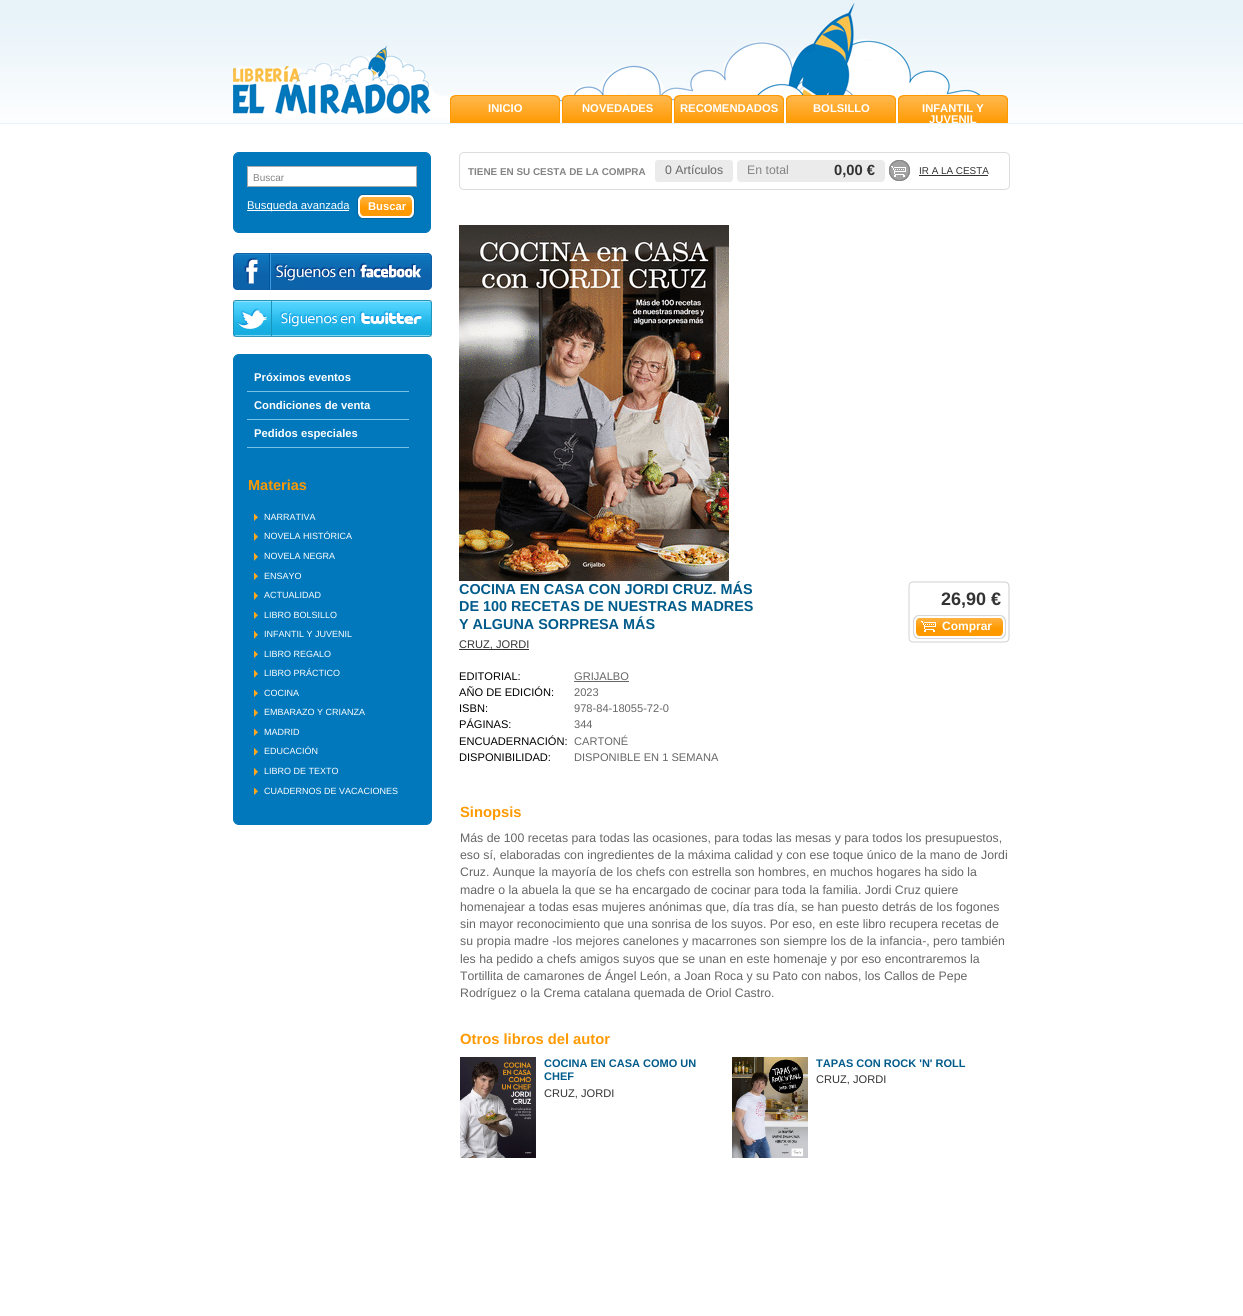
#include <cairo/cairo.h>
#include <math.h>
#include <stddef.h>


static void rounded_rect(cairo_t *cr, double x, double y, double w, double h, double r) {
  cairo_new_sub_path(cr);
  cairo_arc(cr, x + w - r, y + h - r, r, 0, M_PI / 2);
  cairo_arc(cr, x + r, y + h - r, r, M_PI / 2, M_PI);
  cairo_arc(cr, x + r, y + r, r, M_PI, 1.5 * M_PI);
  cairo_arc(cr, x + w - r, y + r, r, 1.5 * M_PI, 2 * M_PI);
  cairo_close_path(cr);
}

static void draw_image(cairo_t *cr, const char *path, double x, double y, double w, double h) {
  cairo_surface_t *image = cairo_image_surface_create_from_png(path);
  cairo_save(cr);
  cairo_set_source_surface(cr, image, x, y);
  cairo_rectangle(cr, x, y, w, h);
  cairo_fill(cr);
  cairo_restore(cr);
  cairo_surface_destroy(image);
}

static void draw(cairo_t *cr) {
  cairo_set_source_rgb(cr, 1, 1, 1);
  cairo_paint(cr);
  draw_image(cr, "images/1.png", 0, 0, 1243, 124);
  draw_image(cr, "images/2.png", 233, 3, 756, 115);
  draw_image(cr, "images/3.png", 233, 45, 198, 69);
  draw_image(cr, "images/4.png", 450, 95, 110, 28);
  draw_image(cr, "images/5.png", 562, 95, 110, 28);
  draw_image(cr, "images/6.png", 674, 95, 110, 28);
  draw_image(cr, "images/7.png", 786, 95, 110, 28);
  draw_image(cr, "images/8.png", 898, 95, 110, 28);
  cairo_set_source_rgb(cr, 1 / 255.0, 120 / 255.0, 188 / 255.0);
  rounded_rect(cr, 233.5, 152.5, 197, 80, 5.5);
  cairo_fill_preserve(cr);
  cairo_set_line_width(cr, 1);
  cairo_stroke(cr);
  cairo_set_source_rgb(cr, 1, 1, 1);
  cairo_rectangle(cr, 247.5, 166.5, 169, 20);
  cairo_fill_preserve(cr);
  cairo_set_source_rgb(cr, 170 / 255.0, 170 / 255.0, 170 / 255.0);
  cairo_stroke(cr);
  draw_image(cr, "images/9.png", 357, 194, 58, 25);
  cairo_set_source_rgb(cr, 1, 1, 1);
  cairo_rectangle(cr, 247, 210, 102, 1);
  cairo_fill(cr);
  draw_image(cr, "images/10.png", 233, 253, 199, 37);
  draw_image(cr, "images/11.png", 233, 300, 199, 37);
  cairo_set_source_rgb(cr, 1 / 255.0, 120 / 255.0, 188 / 255.0);
  rounded_rect(cr, 233.5, 354.5, 198, 470, 5.5);
  cairo_fill_preserve(cr);
  cairo_stroke(cr);
  cairo_set_source_rgb(cr, 123 / 255.0, 194 / 255.0, 232 / 255.0);
  cairo_rectangle(cr, 247, 391, 162, 1);
  cairo_fill(cr);
  cairo_rectangle(cr, 247, 419, 162, 1);
  cairo_fill(cr);
  cairo_rectangle(cr, 247, 447, 162, 1);
  cairo_fill(cr);
  draw_image(cr, "images/12.png", 254, 513, 4, 8);
  draw_image(cr, "images/13.png", 254, 533, 4, 8);
  draw_image(cr, "images/13.png", 254, 553, 4, 8);
  draw_image(cr, "images/12.png", 254, 572, 4, 8);
  draw_image(cr, "images/13.png", 254, 592, 4, 8);
  draw_image(cr, "images/12.png", 254, 611, 4, 8);
  draw_image(cr, "images/13.png", 254, 631, 4, 8);
  draw_image(cr, "images/12.png", 254, 650, 4, 8);
  draw_image(cr, "images/13.png", 254, 670, 4, 8);
  draw_image(cr, "images/12.png", 254, 689, 4, 8);
  draw_image(cr, "images/13.png", 254, 709, 4, 8);
  draw_image(cr, "images/12.png", 254, 728, 4, 8);
  draw_image(cr, "images/13.png", 254, 748, 4, 8);
  draw_image(cr, "images/13.png", 254, 768, 4, 8);
  draw_image(cr, "images/12.png", 254, 787, 4, 8);
  rounded_rect(cr, 459.5, 152.5, 550, 37, 4.5);
  cairo_set_source_rgb(cr, 221 / 255.0, 221 / 255.0, 221 / 255.0);
  cairo_stroke(cr);
  cairo_set_source_rgb(cr, 235 / 255.0, 235 / 255.0, 235 / 255.0);
  rounded_rect(cr, 655, 160, 78, 22, 3);
  cairo_fill(cr);
  rounded_rect(cr, 737, 160, 148, 22, 4);
  cairo_fill(cr);
  draw_image(cr, "images/14.png", 889, 160, 21, 21);
  cairo_set_source_rgb(cr, 51 / 255.0, 51 / 255.0, 51 / 255.0);
  cairo_rectangle(cr, 919, 175, 69, 1);
  cairo_fill(cr);
  draw_image(cr, "images/15.png", 459, 225, 270, 356);
  cairo_rectangle(cr, 459, 649, 70, 1);
  cairo_fill(cr);
  cairo_set_source_rgb(cr, 102 / 255.0, 102 / 255.0, 102 / 255.0);
  cairo_rectangle(cr, 574, 681, 55, 1);
  cairo_fill(cr);
  draw_image(cr, "images/16.png", 908, 581, 102, 62);
  draw_image(cr, "images/17.png", 460, 1057, 76, 101);
  draw_image(cr, "images/18.png", 732, 1057, 76, 101);
  cairo_select_font_face(cr, "Liberation Sans", CAIRO_FONT_SLANT_NORMAL, CAIRO_FONT_WEIGHT_BOLD);
  cairo_set_font_size(cr, 11.25);
  cairo_set_source_rgb(cr, 1, 1, 1);
  cairo_move_to(cr, 488, 112);
  cairo_show_text(cr, "INICIO");
  cairo_move_to(cr, 582, 112);
  cairo_show_text(cr, "NOVEDADES");
  cairo_move_to(cr, 680, 112);
  cairo_show_text(cr, "RECOMENDADOS");
  cairo_move_to(cr, 813, 112);
  cairo_show_text(cr, "BOLSILLO");
  cairo_move_to(cr, 922, 112);
  cairo_show_text(cr, "INFANTIL Y");
  cairo_move_to(cr, 929, 123);
  cairo_show_text(cr, "JUVENIL");
  cairo_select_font_face(cr, "Liberation Sans", CAIRO_FONT_SLANT_NORMAL, CAIRO_FONT_WEIGHT_NORMAL);
  cairo_set_font_size(cr, 10);
  cairo_set_source_rgb(cr, 132 / 255.0, 132 / 255.0, 132 / 255.0);
  cairo_move_to(cr, 253, 181);
  cairo_show_text(cr, "Buscar");
  cairo_select_font_face(cr, "Liberation Sans", CAIRO_FONT_SLANT_NORMAL, CAIRO_FONT_WEIGHT_BOLD);
  cairo_set_font_size(cr, 11.25);
  cairo_set_source_rgb(cr, 1, 1, 1);
  cairo_move_to(cr, 368, 210);
  cairo_show_text(cr, "Buscar");
  cairo_select_font_face(cr, "Liberation Sans", CAIRO_FONT_SLANT_NORMAL, CAIRO_FONT_WEIGHT_NORMAL);
  cairo_move_to(cr, 247, 209);
  cairo_show_text(cr, "Busqueda avanzada");
  cairo_select_font_face(cr, "Liberation Sans", CAIRO_FONT_SLANT_NORMAL, CAIRO_FONT_WEIGHT_BOLD);
  cairo_move_to(cr, 254, 381);
  cairo_show_text(cr, "Próximos eventos");
  cairo_move_to(cr, 254, 409);
  cairo_show_text(cr, "Condiciones de venta");
  cairo_move_to(cr, 254, 437);
  cairo_show_text(cr, "Pedidos especiales");
  cairo_set_font_size(cr, 14.5);
  cairo_set_source_rgb(cr, 1, 153 / 255.0, 0);
  cairo_move_to(cr, 248, 490);
  cairo_show_text(cr, "Materias");
  cairo_select_font_face(cr, "Liberation Sans", CAIRO_FONT_SLANT_NORMAL, CAIRO_FONT_WEIGHT_NORMAL);
  cairo_set_font_size(cr, 9);
  cairo_set_source_rgb(cr, 1, 1, 1);
  cairo_move_to(cr, 264, 520);
  cairo_show_text(cr, "NARRATIVA");
  cairo_move_to(cr, 264, 539);
  cairo_show_text(cr, "NOVELA HISTÓRICA");
  cairo_move_to(cr, 264, 559);
  cairo_show_text(cr, "NOVELA NEGRA");
  cairo_move_to(cr, 264, 579);
  cairo_show_text(cr, "ENSAYO");
  cairo_move_to(cr, 264, 598);
  cairo_show_text(cr, "ACTUALIDAD");
  cairo_move_to(cr, 264, 618);
  cairo_show_text(cr, "LIBRO BOLSILLO");
  cairo_move_to(cr, 264, 637);
  cairo_show_text(cr, "INFANTIL Y JUVENIL");
  cairo_move_to(cr, 264, 657);
  cairo_show_text(cr, "LIBRO REGALO");
  cairo_move_to(cr, 264, 676);
  cairo_show_text(cr, "LIBRO PRÁCTICO");
  cairo_move_to(cr, 264, 696);
  cairo_show_text(cr, "COCINA");
  cairo_move_to(cr, 264, 715);
  cairo_show_text(cr, "EMBARAZO Y CRIANZA");
  cairo_move_to(cr, 264, 735);
  cairo_show_text(cr, "MADRID");
  cairo_move_to(cr, 264, 754);
  cairo_show_text(cr, "EDUCACIÓN");
  cairo_move_to(cr, 264, 774);
  cairo_show_text(cr, "LIBRO DE TEXTO");
  cairo_move_to(cr, 264, 794);
  cairo_show_text(cr, "CUADERNOS DE VACACIONES");
  cairo_select_font_face(cr, "Liberation Sans", CAIRO_FONT_SLANT_NORMAL, CAIRO_FONT_WEIGHT_BOLD);
  cairo_set_font_size(cr, 9.9);
  cairo_set_source_rgb(cr, 132 / 255.0, 132 / 255.0, 132 / 255.0);
  cairo_move_to(cr, 468, 175);
  cairo_show_text(cr, "TIENE EN SU CESTA DE LA COMPRA");
  cairo_select_font_face(cr, "Liberation Sans", CAIRO_FONT_SLANT_NORMAL, CAIRO_FONT_WEIGHT_NORMAL);
  cairo_set_font_size(cr, 12.3);
  cairo_set_source_rgb(cr, 102 / 255.0, 102 / 255.0, 102 / 255.0);
  cairo_move_to(cr, 665, 174);
  cairo_show_text(cr, "0 Artículos");
  cairo_set_source_rgb(cr, 132 / 255.0, 132 / 255.0, 132 / 255.0);
  cairo_move_to(cr, 747, 174);
  cairo_show_text(cr, "En total");
  cairo_select_font_face(cr, "Liberation Sans", CAIRO_FONT_SLANT_NORMAL, CAIRO_FONT_WEIGHT_BOLD);
  cairo_set_font_size(cr, 14.75);
  cairo_set_source_rgb(cr, 51 / 255.0, 51 / 255.0, 51 / 255.0);
  cairo_move_to(cr, 834, 175);
  cairo_show_text(cr, "0,00 €");
  cairo_select_font_face(cr, "Liberation Sans", CAIRO_FONT_SLANT_NORMAL, CAIRO_FONT_WEIGHT_NORMAL);
  cairo_set_font_size(cr, 9.9);
  cairo_move_to(cr, 919, 174);
  cairo_show_text(cr, "IR A LA CESTA");
  cairo_select_font_face(cr, "Liberation Sans", CAIRO_FONT_SLANT_NORMAL, CAIRO_FONT_WEIGHT_BOLD);
  cairo_set_font_size(cr, 14.4);
  cairo_set_source_rgb(cr, 0, 91 / 255.0, 139 / 255.0);
  cairo_move_to(cr, 459, 594);
  cairo_show_text(cr, "COCINA EN CASA CON JORDI CRUZ. MÁS");
  cairo_move_to(cr, 459, 611);
  cairo_show_text(cr, "DE 100 RECETAS DE NUESTRAS MADRES");
  cairo_move_to(cr, 459, 629);
  cairo_show_text(cr, "Y ALGUNA SORPRESA MÁS");
  cairo_select_font_face(cr, "Liberation Sans", CAIRO_FONT_SLANT_NORMAL, CAIRO_FONT_WEIGHT_NORMAL);
  cairo_set_font_size(cr, 11.1);
  cairo_set_source_rgb(cr, 51 / 255.0, 51 / 255.0, 51 / 255.0);
  cairo_move_to(cr, 459, 648);
  cairo_show_text(cr, "CRUZ, JORDI");
  cairo_set_source_rgb(cr, 0, 0, 0);
  cairo_move_to(cr, 459, 680);
  cairo_show_text(cr, "EDITORIAL:");
  cairo_set_source_rgb(cr, 102 / 255.0, 102 / 255.0, 102 / 255.0);
  cairo_move_to(cr, 574, 680);
  cairo_show_text(cr, "GRIJALBO");
  cairo_set_source_rgb(cr, 0, 0, 0);
  cairo_move_to(cr, 459, 696);
  cairo_show_text(cr, "AÑO DE EDICIÓN:");
  cairo_set_source_rgb(cr, 102 / 255.0, 102 / 255.0, 102 / 255.0);
  cairo_move_to(cr, 574, 696);
  cairo_show_text(cr, "2023");
  cairo_set_source_rgb(cr, 0, 0, 0);
  cairo_move_to(cr, 459, 712);
  cairo_show_text(cr, "ISBN:");
  cairo_set_source_rgb(cr, 102 / 255.0, 102 / 255.0, 102 / 255.0);
  cairo_move_to(cr, 574, 712);
  cairo_show_text(cr, "978-84-18055-72-0");
  cairo_set_source_rgb(cr, 0, 0, 0);
  cairo_move_to(cr, 459, 728);
  cairo_show_text(cr, "PÁGINAS:");
  cairo_set_source_rgb(cr, 102 / 255.0, 102 / 255.0, 102 / 255.0);
  cairo_move_to(cr, 574, 728);
  cairo_show_text(cr, "344");
  cairo_set_source_rgb(cr, 0, 0, 0);
  cairo_move_to(cr, 459, 745);
  cairo_show_text(cr, "ENCUADERNACIÓN:");
  cairo_set_source_rgb(cr, 102 / 255.0, 102 / 255.0, 102 / 255.0);
  cairo_move_to(cr, 574, 745);
  cairo_show_text(cr, "CARTONÉ");
  cairo_set_source_rgb(cr, 0, 0, 0);
  cairo_move_to(cr, 459, 761);
  cairo_show_text(cr, "DISPONIBILIDAD:");
  cairo_set_source_rgb(cr, 102 / 255.0, 102 / 255.0, 102 / 255.0);
  cairo_move_to(cr, 574, 761);
  cairo_show_text(cr, "DISPONIBLE EN 1 SEMANA");
  cairo_select_font_face(cr, "Liberation Sans", CAIRO_FONT_SLANT_NORMAL, CAIRO_FONT_WEIGHT_BOLD);
  cairo_set_font_size(cr, 18);
  cairo_set_source_rgb(cr, 51 / 255.0, 51 / 255.0, 51 / 255.0);
  cairo_move_to(cr, 941, 605);
  cairo_show_text(cr, "26,90 €");
  cairo_set_font_size(cr, 12);
  cairo_set_source_rgb(cr, 1, 1, 1);
  cairo_move_to(cr, 942, 630);
  cairo_show_text(cr, "Comprar");
  cairo_set_font_size(cr, 14.75);
  cairo_set_source_rgb(cr, 1, 153 / 255.0, 0);
  cairo_move_to(cr, 460, 817);
  cairo_show_text(cr, "Sinopsis");
  cairo_select_font_face(cr, "Liberation Sans", CAIRO_FONT_SLANT_NORMAL, CAIRO_FONT_WEIGHT_NORMAL);
  cairo_set_font_size(cr, 12.3);
  cairo_set_source_rgb(cr, 102 / 255.0, 102 / 255.0, 102 / 255.0);
  cairo_move_to(cr, 460, 842);
  cairo_show_text(cr, "Más de 100 recetas para todas las ocasiones, para todas las mesas y para todos los presupuestos,");
  cairo_move_to(cr, 460, 859);
  cairo_show_text(cr, "eso sí, elaboradas con ingredientes de la máxima calidad y con ese toque único de la mano de Jordi");
  cairo_move_to(cr, 460, 876);
  cairo_show_text(cr, "Cruz. Aunque la mayoría de los chefs con estrella son hombres, en muchos hogares ha sido la");
  cairo_move_to(cr, 460, 894);
  cairo_show_text(cr, "madre o la abuela la que se ha encargado de cocinar para toda la familia. Jordi Cruz quiere");
  cairo_move_to(cr, 460, 911);
  cairo_show_text(cr, "homenajear a todas esas mujeres anónimas que, día tras día, se han puesto detrás de los fogones");
  cairo_move_to(cr, 460, 928);
  cairo_show_text(cr, "sin mayor reconocimiento que una sonrisa de los suyos. Por eso, en este libro recupera recetas de");
  cairo_move_to(cr, 460, 945);
  cairo_show_text(cr, "su propia madre -los mejores canelones y macarrones son siempre los de la infancia-, pero también");
  cairo_move_to(cr, 460, 963);
  cairo_show_text(cr, "les ha pedido a chefs amigos suyos que se unan en este homenaje y por eso encontraremos la");
  cairo_move_to(cr, 460, 980);
  cairo_show_text(cr, "Tortillita de camarones de Ángel León, a Joan Roca y su Pato con nabos, los Callos de Pepe");
  cairo_move_to(cr, 460, 997);
  cairo_show_text(cr, "Rodríguez o la Crema catalana quemada de Oriol Castro.");
  cairo_select_font_face(cr, "Liberation Sans", CAIRO_FONT_SLANT_NORMAL, CAIRO_FONT_WEIGHT_BOLD);
  cairo_set_font_size(cr, 14.75);
  cairo_set_source_rgb(cr, 1, 153 / 255.0, 0);
  cairo_move_to(cr, 460, 1044);
  cairo_show_text(cr, "Otros libros del autor");
  cairo_set_font_size(cr, 11);
  cairo_set_source_rgb(cr, 0, 91 / 255.0, 139 / 255.0);
  cairo_move_to(cr, 544, 1067);
  cairo_show_text(cr, "COCINA EN CASA COMO UN");
  cairo_move_to(cr, 544, 1080);
  cairo_show_text(cr, "CHEF");
  cairo_select_font_face(cr, "Liberation Sans", CAIRO_FONT_SLANT_NORMAL, CAIRO_FONT_WEIGHT_NORMAL);
  cairo_set_font_size(cr, 11.1);
  cairo_set_source_rgb(cr, 51 / 255.0, 51 / 255.0, 51 / 255.0);
  cairo_move_to(cr, 544, 1097);
  cairo_show_text(cr, "CRUZ, JORDI");
  cairo_select_font_face(cr, "Liberation Sans", CAIRO_FONT_SLANT_NORMAL, CAIRO_FONT_WEIGHT_BOLD);
  cairo_set_font_size(cr, 11);
  cairo_set_source_rgb(cr, 0, 91 / 255.0, 139 / 255.0);
  cairo_move_to(cr, 816, 1067);
  cairo_show_text(cr, "TAPAS CON ROCK 'N' ROLL");
  cairo_select_font_face(cr, "Liberation Sans", CAIRO_FONT_SLANT_NORMAL, CAIRO_FONT_WEIGHT_NORMAL);
  cairo_set_font_size(cr, 11.1);
  cairo_set_source_rgb(cr, 51 / 255.0, 51 / 255.0, 51 / 255.0);
  cairo_move_to(cr, 816, 1083);
  cairo_show_text(cr, "CRUZ, JORDI");
}

int main(void) {
  cairo_surface_t *surface = cairo_image_surface_create(CAIRO_FORMAT_RGB24, 1243, 1316);
  cairo_t *cr = cairo_create(surface);
  cairo_font_options_t *options = cairo_font_options_create();
  cairo_font_options_set_hint_metrics(options, CAIRO_HINT_METRICS_OFF);
  cairo_font_options_set_hint_style(options, CAIRO_HINT_STYLE_NONE);
  cairo_set_font_options(cr, options);
  cairo_set_miter_limit(cr, 4);
  draw(cr);
  cairo_surface_write_to_png(surface, "out.png");
  cairo_font_options_destroy(options);
  cairo_destroy(cr);
  cairo_surface_destroy(surface);
  return 0;
}
